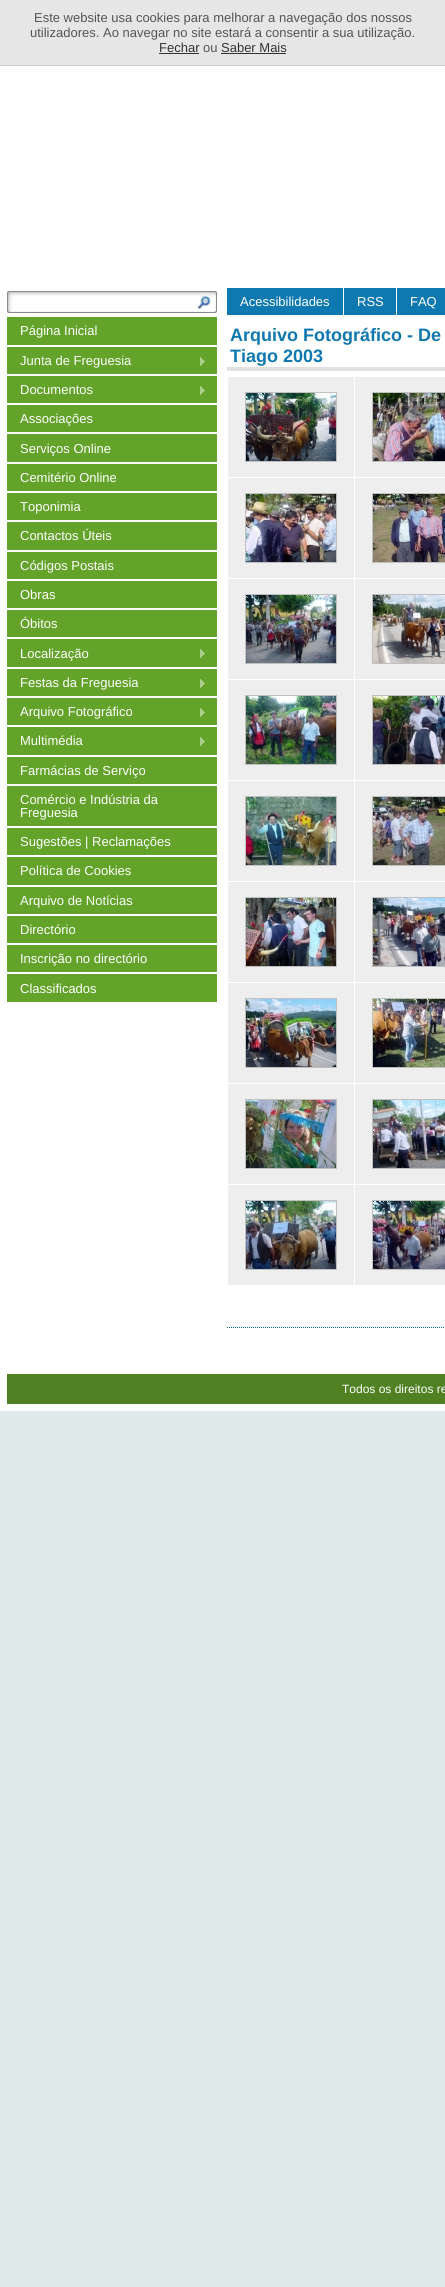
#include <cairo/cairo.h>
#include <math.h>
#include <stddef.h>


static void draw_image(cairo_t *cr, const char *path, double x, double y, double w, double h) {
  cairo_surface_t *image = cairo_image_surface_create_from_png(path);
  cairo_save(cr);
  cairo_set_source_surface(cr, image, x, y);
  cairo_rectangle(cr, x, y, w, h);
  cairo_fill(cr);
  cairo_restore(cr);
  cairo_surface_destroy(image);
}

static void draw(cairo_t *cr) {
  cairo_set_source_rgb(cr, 224 / 255.0, 233 / 255.0, 233 / 255.0);
  cairo_paint(cr);
  cairo_set_source_rgb(cr, 230 / 255.0, 230 / 255.0, 230 / 255.0);
  cairo_rectangle(cr, 0, 0, 445, 65);
  cairo_fill(cr);
  cairo_set_source_rgb(cr, 204 / 255.0, 204 / 255.0, 204 / 255.0);
  cairo_rectangle(cr, 0, 65, 445, 1);
  cairo_fill(cr);
  cairo_set_source_rgb(cr, 51 / 255.0, 51 / 255.0, 51 / 255.0);
  cairo_rectangle(cr, 159, 53, 40, 1);
  cairo_fill(cr);
  cairo_rectangle(cr, 221, 53, 65, 1);
  cairo_fill(cr);
  cairo_set_source_rgb(cr, 1, 1, 1);
  cairo_rectangle(cr, 0, 66, 445, 1345);
  cairo_fill(cr);
  draw_image(cr, "images/1.png", 7, 291, 210, 22);
  cairo_set_source_rgb(cr, 14 / 255.0, 120 / 255.0, 176 / 255.0);
  cairo_rectangle(cr, 227, 288, 218, 27);
  cairo_fill(cr);
  cairo_set_source_rgb(cr, 1, 1, 1);
  cairo_rectangle(cr, 343, 288, 1, 27);
  cairo_fill(cr);
  cairo_rectangle(cr, 396, 288, 1, 27);
  cairo_fill(cr);
  cairo_set_source_rgb(cr, 99 / 255.0, 163 / 255.0, 42 / 255.0);
  cairo_rectangle(cr, 7, 317, 210, 28);
  cairo_fill(cr);
  cairo_rectangle(cr, 7, 347, 210, 27);
  cairo_fill(cr);
  draw_image(cr, "images/2.png", 200, 357, 5, 9);
  cairo_rectangle(cr, 7, 376, 210, 27);
  cairo_fill(cr);
  draw_image(cr, "images/2.png", 200, 386, 5, 9);
  cairo_rectangle(cr, 7, 405, 210, 27);
  cairo_fill(cr);
  cairo_rectangle(cr, 7, 434, 210, 28);
  cairo_fill(cr);
  cairo_rectangle(cr, 7, 464, 210, 27);
  cairo_fill(cr);
  cairo_rectangle(cr, 7, 493, 210, 27);
  cairo_fill(cr);
  cairo_rectangle(cr, 7, 522, 210, 28);
  cairo_fill(cr);
  cairo_rectangle(cr, 7, 552, 210, 27);
  cairo_fill(cr);
  cairo_rectangle(cr, 7, 581, 210, 27);
  cairo_fill(cr);
  cairo_rectangle(cr, 7, 610, 210, 27);
  cairo_fill(cr);
  cairo_rectangle(cr, 7, 639, 210, 28);
  cairo_fill(cr);
  draw_image(cr, "images/2.png", 200, 649, 5, 9);
  cairo_rectangle(cr, 7, 669, 210, 27);
  cairo_fill(cr);
  draw_image(cr, "images/2.png", 200, 679, 5, 9);
  cairo_rectangle(cr, 7, 698, 210, 27);
  cairo_fill(cr);
  draw_image(cr, "images/2.png", 200, 708, 5, 9);
  cairo_rectangle(cr, 7, 727, 210, 28);
  cairo_fill(cr);
  draw_image(cr, "images/2.png", 200, 737, 5, 9);
  cairo_rectangle(cr, 7, 757, 210, 27);
  cairo_fill(cr);
  cairo_rectangle(cr, 7, 786, 210, 40);
  cairo_fill(cr);
  cairo_rectangle(cr, 7, 828, 210, 27);
  cairo_fill(cr);
  cairo_rectangle(cr, 7, 857, 210, 28);
  cairo_fill(cr);
  cairo_rectangle(cr, 7, 887, 210, 27);
  cairo_fill(cr);
  cairo_rectangle(cr, 7, 916, 210, 27);
  cairo_fill(cr);
  cairo_rectangle(cr, 7, 945, 210, 27);
  cairo_fill(cr);
  cairo_rectangle(cr, 7, 974, 210, 28);
  cairo_fill(cr);
  cairo_set_source_rgb(cr, 224 / 255.0, 224 / 255.0, 224 / 255.0);
  cairo_rectangle(cr, 227, 367, 218, 4);
  cairo_fill(cr);
  cairo_set_source_rgb(cr, 238 / 255.0, 238 / 255.0, 238 / 255.0);
  cairo_rectangle(cr, 228, 377, 126, 100);
  cairo_fill(cr);
  cairo_rectangle(cr, 245.5, 392.5, 91, 69);
  cairo_set_source_rgb(cr, 192 / 255.0, 192 / 255.0, 192 / 255.0);
  cairo_set_line_width(cr, 1);
  cairo_stroke(cr);
  draw_image(cr, "images/3.png", 246, 393, 90, 68);
  cairo_set_source_rgb(cr, 238 / 255.0, 238 / 255.0, 238 / 255.0);
  cairo_rectangle(cr, 355, 377, 90, 100);
  cairo_fill(cr);
  cairo_rectangle(cr, 372.5, 392.5, 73, 69);
  cairo_set_source_rgb(cr, 192 / 255.0, 192 / 255.0, 192 / 255.0);
  cairo_stroke(cr);
  draw_image(cr, "images/4.png", 373, 393, 72, 68);
  cairo_set_source_rgb(cr, 238 / 255.0, 238 / 255.0, 238 / 255.0);
  cairo_rectangle(cr, 228, 478, 126, 100);
  cairo_fill(cr);
  cairo_rectangle(cr, 245.5, 493.5, 91, 69);
  cairo_set_source_rgb(cr, 192 / 255.0, 192 / 255.0, 192 / 255.0);
  cairo_stroke(cr);
  draw_image(cr, "images/5.png", 246, 494, 90, 68);
  cairo_set_source_rgb(cr, 238 / 255.0, 238 / 255.0, 238 / 255.0);
  cairo_rectangle(cr, 355, 478, 90, 100);
  cairo_fill(cr);
  cairo_rectangle(cr, 372.5, 493.5, 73, 69);
  cairo_set_source_rgb(cr, 192 / 255.0, 192 / 255.0, 192 / 255.0);
  cairo_stroke(cr);
  draw_image(cr, "images/6.png", 373, 494, 72, 68);
  cairo_set_source_rgb(cr, 238 / 255.0, 238 / 255.0, 238 / 255.0);
  cairo_rectangle(cr, 228, 579, 126, 100);
  cairo_fill(cr);
  cairo_rectangle(cr, 245.5, 594.5, 91, 69);
  cairo_set_source_rgb(cr, 192 / 255.0, 192 / 255.0, 192 / 255.0);
  cairo_stroke(cr);
  draw_image(cr, "images/7.png", 246, 595, 90, 68);
  cairo_set_source_rgb(cr, 238 / 255.0, 238 / 255.0, 238 / 255.0);
  cairo_rectangle(cr, 355, 579, 90, 100);
  cairo_fill(cr);
  cairo_rectangle(cr, 372.5, 594.5, 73, 69);
  cairo_set_source_rgb(cr, 192 / 255.0, 192 / 255.0, 192 / 255.0);
  cairo_stroke(cr);
  draw_image(cr, "images/8.png", 373, 595, 72, 68);
  cairo_set_source_rgb(cr, 238 / 255.0, 238 / 255.0, 238 / 255.0);
  cairo_rectangle(cr, 228, 680, 126, 100);
  cairo_fill(cr);
  cairo_rectangle(cr, 245.5, 695.5, 91, 69);
  cairo_set_source_rgb(cr, 192 / 255.0, 192 / 255.0, 192 / 255.0);
  cairo_stroke(cr);
  draw_image(cr, "images/9.png", 246, 696, 90, 68);
  cairo_set_source_rgb(cr, 238 / 255.0, 238 / 255.0, 238 / 255.0);
  cairo_rectangle(cr, 355, 680, 90, 100);
  cairo_fill(cr);
  cairo_rectangle(cr, 372.5, 695.5, 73, 69);
  cairo_set_source_rgb(cr, 192 / 255.0, 192 / 255.0, 192 / 255.0);
  cairo_stroke(cr);
  draw_image(cr, "images/10.png", 373, 696, 72, 68);
  cairo_set_source_rgb(cr, 238 / 255.0, 238 / 255.0, 238 / 255.0);
  cairo_rectangle(cr, 228, 781, 126, 100);
  cairo_fill(cr);
  cairo_rectangle(cr, 245.5, 796.5, 91, 69);
  cairo_set_source_rgb(cr, 192 / 255.0, 192 / 255.0, 192 / 255.0);
  cairo_stroke(cr);
  draw_image(cr, "images/11.png", 246, 797, 90, 68);
  cairo_set_source_rgb(cr, 238 / 255.0, 238 / 255.0, 238 / 255.0);
  cairo_rectangle(cr, 355, 781, 90, 100);
  cairo_fill(cr);
  cairo_rectangle(cr, 372.5, 796.5, 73, 69);
  cairo_set_source_rgb(cr, 192 / 255.0, 192 / 255.0, 192 / 255.0);
  cairo_stroke(cr);
  draw_image(cr, "images/12.png", 373, 797, 72, 68);
  cairo_set_source_rgb(cr, 238 / 255.0, 238 / 255.0, 238 / 255.0);
  cairo_rectangle(cr, 228, 882, 126, 100);
  cairo_fill(cr);
  cairo_rectangle(cr, 245.5, 897.5, 91, 69);
  cairo_set_source_rgb(cr, 192 / 255.0, 192 / 255.0, 192 / 255.0);
  cairo_stroke(cr);
  draw_image(cr, "images/13.png", 246, 898, 90, 68);
  cairo_set_source_rgb(cr, 238 / 255.0, 238 / 255.0, 238 / 255.0);
  cairo_rectangle(cr, 355, 882, 90, 100);
  cairo_fill(cr);
  cairo_rectangle(cr, 372.5, 897.5, 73, 69);
  cairo_set_source_rgb(cr, 192 / 255.0, 192 / 255.0, 192 / 255.0);
  cairo_stroke(cr);
  draw_image(cr, "images/14.png", 373, 898, 72, 68);
  cairo_set_source_rgb(cr, 238 / 255.0, 238 / 255.0, 238 / 255.0);
  cairo_rectangle(cr, 228, 983, 126, 100);
  cairo_fill(cr);
  cairo_rectangle(cr, 245.5, 998.5, 91, 69);
  cairo_set_source_rgb(cr, 192 / 255.0, 192 / 255.0, 192 / 255.0);
  cairo_stroke(cr);
  draw_image(cr, "images/15.png", 246, 999, 90, 68);
  cairo_set_source_rgb(cr, 238 / 255.0, 238 / 255.0, 238 / 255.0);
  cairo_rectangle(cr, 355, 983, 90, 100);
  cairo_fill(cr);
  cairo_rectangle(cr, 372.5, 998.5, 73, 69);
  cairo_set_source_rgb(cr, 192 / 255.0, 192 / 255.0, 192 / 255.0);
  cairo_stroke(cr);
  draw_image(cr, "images/16.png", 373, 999, 72, 68);
  cairo_set_source_rgb(cr, 238 / 255.0, 238 / 255.0, 238 / 255.0);
  cairo_rectangle(cr, 228, 1084, 126, 100);
  cairo_fill(cr);
  cairo_rectangle(cr, 245.5, 1099.5, 91, 69);
  cairo_set_source_rgb(cr, 192 / 255.0, 192 / 255.0, 192 / 255.0);
  cairo_stroke(cr);
  draw_image(cr, "images/17.png", 246, 1100, 90, 68);
  cairo_set_source_rgb(cr, 238 / 255.0, 238 / 255.0, 238 / 255.0);
  cairo_rectangle(cr, 355, 1084, 90, 100);
  cairo_fill(cr);
  cairo_rectangle(cr, 372.5, 1099.5, 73, 69);
  cairo_set_source_rgb(cr, 192 / 255.0, 192 / 255.0, 192 / 255.0);
  cairo_stroke(cr);
  draw_image(cr, "images/18.png", 373, 1100, 72, 68);
  cairo_set_source_rgb(cr, 238 / 255.0, 238 / 255.0, 238 / 255.0);
  cairo_rectangle(cr, 228, 1185, 126, 100);
  cairo_fill(cr);
  cairo_rectangle(cr, 245.5, 1200.5, 91, 69);
  cairo_set_source_rgb(cr, 192 / 255.0, 192 / 255.0, 192 / 255.0);
  cairo_stroke(cr);
  draw_image(cr, "images/19.png", 246, 1201, 90, 68);
  cairo_set_source_rgb(cr, 238 / 255.0, 238 / 255.0, 238 / 255.0);
  cairo_rectangle(cr, 355, 1185, 90, 100);
  cairo_fill(cr);
  cairo_rectangle(cr, 372.5, 1200.5, 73, 69);
  cairo_set_source_rgb(cr, 192 / 255.0, 192 / 255.0, 192 / 255.0);
  cairo_stroke(cr);
  draw_image(cr, "images/20.png", 373, 1201, 72, 68);
  draw_image(cr, "images/21.png", 227, 1327, 217, 1);
  cairo_set_source_rgb(cr, 79 / 255.0, 129 / 255.0, 35 / 255.0);
  cairo_rectangle(cr, 7, 1374, 438, 30);
  cairo_fill(cr);
  cairo_select_font_face(cr, "Liberation Sans", CAIRO_FONT_SLANT_NORMAL, CAIRO_FONT_WEIGHT_NORMAL);
  cairo_set_font_size(cr, 13);
  cairo_set_source_rgb(cr, 85 / 255.0, 85 / 255.0, 85 / 255.0);
  cairo_move_to(cr, 34, 22);
  cairo_show_text(cr, "Este website usa cookies para melhorar a navegação dos nossos");
  cairo_move_to(cr, 30, 37);
  cairo_show_text(cr, "utilizadores. Ao navegar no site estará a consentir a sua utilização.");
  cairo_set_source_rgb(cr, 51 / 255.0, 51 / 255.0, 51 / 255.0);
  cairo_move_to(cr, 159, 52);
  cairo_show_text(cr, "Fechar");
  cairo_set_source_rgb(cr, 85 / 255.0, 85 / 255.0, 85 / 255.0);
  cairo_move_to(cr, 203, 52);
  cairo_show_text(cr, "ou");
  cairo_set_source_rgb(cr, 51 / 255.0, 51 / 255.0, 51 / 255.0);
  cairo_move_to(cr, 221, 52);
  cairo_show_text(cr, "Saber Mais");
  cairo_set_source_rgb(cr, 1, 1, 1);
  cairo_move_to(cr, 240, 306);
  cairo_show_text(cr, "Acessibilidades");
  cairo_move_to(cr, 357, 306);
  cairo_show_text(cr, "RSS");
  cairo_move_to(cr, 410, 306);
  cairo_show_text(cr, "FAQ");
  cairo_move_to(cr, 20, 335);
  cairo_show_text(cr, "Página Inicial");
  cairo_move_to(cr, 20, 365);
  cairo_show_text(cr, "Junta de Freguesia");
  cairo_move_to(cr, 20, 394);
  cairo_show_text(cr, "Documentos");
  cairo_move_to(cr, 20, 423);
  cairo_show_text(cr, "Associações");
  cairo_move_to(cr, 20, 453);
  cairo_show_text(cr, "Serviços Online");
  cairo_move_to(cr, 20, 482);
  cairo_show_text(cr, "Cemitério Online");
  cairo_move_to(cr, 20, 511);
  cairo_show_text(cr, "Toponimia");
  cairo_move_to(cr, 20, 540);
  cairo_show_text(cr, "Contactos Úteis");
  cairo_move_to(cr, 20, 570);
  cairo_show_text(cr, "Códigos Postais");
  cairo_move_to(cr, 20, 599);
  cairo_show_text(cr, "Obras");
  cairo_move_to(cr, 20, 628);
  cairo_show_text(cr, "Óbitos");
  cairo_move_to(cr, 20, 658);
  cairo_show_text(cr, "Localização");
  cairo_move_to(cr, 20, 687);
  cairo_show_text(cr, "Festas da Freguesia");
  cairo_move_to(cr, 20, 716);
  cairo_show_text(cr, "Arquivo Fotográfico");
  cairo_move_to(cr, 20, 745);
  cairo_show_text(cr, "Multimédia");
  cairo_move_to(cr, 20, 775);
  cairo_show_text(cr, "Farmácias de Serviço");
  cairo_move_to(cr, 20, 804);
  cairo_show_text(cr, "Comércio e Indústria da");
  cairo_move_to(cr, 20, 817);
  cairo_show_text(cr, "Freguesia");
  cairo_move_to(cr, 20, 846);
  cairo_show_text(cr, "Sugestões | Reclamações");
  cairo_move_to(cr, 20, 875);
  cairo_show_text(cr, "Política de Cookies");
  cairo_move_to(cr, 20, 905);
  cairo_show_text(cr, "Arquivo de Notícias");
  cairo_move_to(cr, 20, 934);
  cairo_show_text(cr, "Directório");
  cairo_move_to(cr, 20, 963);
  cairo_show_text(cr, "Inscrição no directório");
  cairo_move_to(cr, 20, 993);
  cairo_show_text(cr, "Classificados");
  cairo_select_font_face(cr, "Liberation Sans", CAIRO_FONT_SLANT_NORMAL, CAIRO_FONT_WEIGHT_BOLD);
  cairo_set_font_size(cr, 18);
  cairo_set_source_rgb(cr, 14 / 255.0, 120 / 255.0, 176 / 255.0);
  cairo_move_to(cr, 230, 341);
  cairo_show_text(cr, "Arquivo Fotográfico - De");
  cairo_move_to(cr, 230, 362);
  cairo_show_text(cr, "Tiago 2003");
  cairo_select_font_face(cr, "Liberation Sans", CAIRO_FONT_SLANT_NORMAL, CAIRO_FONT_WEIGHT_NORMAL);
  cairo_set_font_size(cr, 12);
  cairo_set_source_rgb(cr, 1, 1, 1);
  cairo_move_to(cr, 342, 1393);
  cairo_show_text(cr, "Todos os direitos re");
}

int main(void) {
  cairo_surface_t *surface = cairo_image_surface_create(CAIRO_FORMAT_RGB24, 445, 2287);
  cairo_t *cr = cairo_create(surface);
  cairo_font_options_t *options = cairo_font_options_create();
  cairo_font_options_set_hint_metrics(options, CAIRO_HINT_METRICS_OFF);
  cairo_font_options_set_hint_style(options, CAIRO_HINT_STYLE_NONE);
  cairo_set_font_options(cr, options);
  cairo_set_miter_limit(cr, 4);
  draw(cr);
  cairo_surface_write_to_png(surface, "out.png");
  cairo_font_options_destroy(options);
  cairo_destroy(cr);
  cairo_surface_destroy(surface);
  return 0;
}
